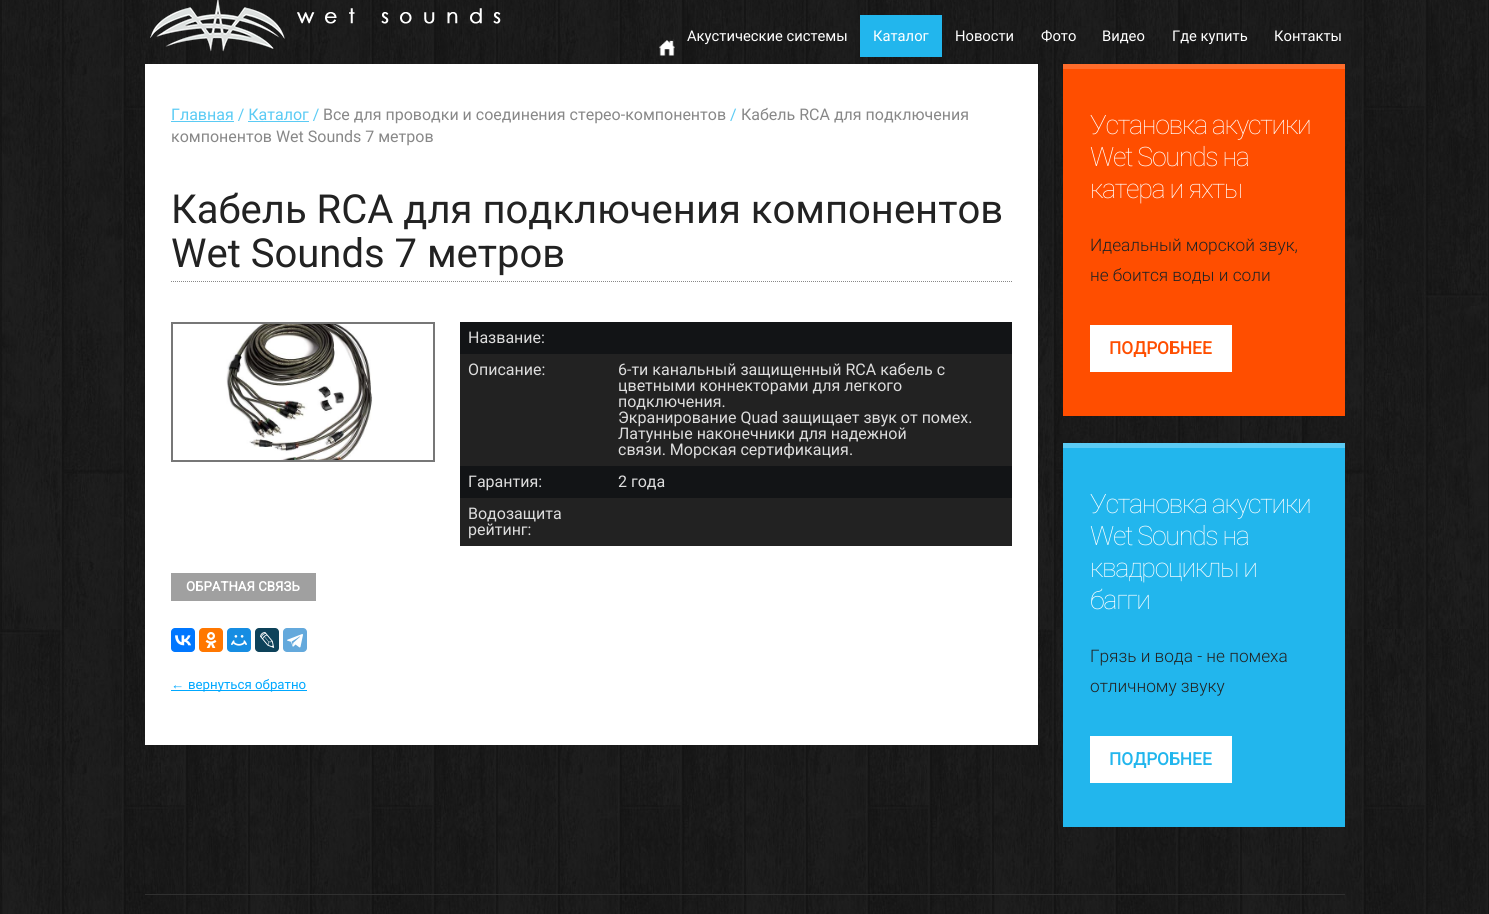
#include <cairo/cairo.h>
#include <math.h>
#include <stddef.h>


static void draw_spaced(cairo_t *cr, double x, double y, const char *s, double letter, double word) {
  cairo_move_to(cr, x, y);
  while (*s) {
    char ch[5] = {0};
    int n = 0;
    do ch[n++] = *s++; while ((*s & 0xC0) == 0x80);
    cairo_show_text(cr, ch);
    cairo_rel_move_to(cr, letter + word * (*ch == ' '), 0);
  }
}

static void rounded_rect(cairo_t *cr, double x, double y, double w, double h, double r) {
  cairo_new_sub_path(cr);
  cairo_arc(cr, x + w - r, y + h - r, r, 0, M_PI / 2);
  cairo_arc(cr, x + r, y + h - r, r, M_PI / 2, M_PI);
  cairo_arc(cr, x + r, y + r, r, M_PI, 1.5 * M_PI);
  cairo_arc(cr, x + w - r, y + r, r, 1.5 * M_PI, 2 * M_PI);
  cairo_close_path(cr);
}

static void draw_image(cairo_t *cr, const char *path, double x, double y, double w, double h) {
  cairo_surface_t *image = cairo_image_surface_create_from_png(path);
  cairo_save(cr);
  cairo_set_source_surface(cr, image, x, y);
  cairo_rectangle(cr, x, y, w, h);
  cairo_fill(cr);
  cairo_restore(cr);
  cairo_surface_destroy(image);
}

static void draw(cairo_t *cr) {
  cairo_set_source_rgb(cr, 1, 1, 1);
  cairo_paint(cr);
  draw_image(cr, "images/1.png", 0, 0, 1489, 914);
  draw_image(cr, "images/2.png", 150, 0, 351, 52);
  cairo_set_source_rgb(cr, 34 / 255.0, 182 / 255.0, 237 / 255.0);
  cairo_rectangle(cr, 860, 15, 82, 42);
  cairo_fill(cr);
  draw_image(cr, "images/3.png", 659, 39, 16, 17);
  cairo_set_source_rgb(cr, 1, 1, 1);
  cairo_rectangle(cr, 145, 64, 893, 681);
  cairo_fill(cr);
  cairo_set_source_rgb(cr, 91 / 255.0, 203 / 255.0, 244 / 255.0);
  cairo_rectangle(cr, 171, 121, 63, 1);
  cairo_fill(cr);
  cairo_rectangle(cr, 248, 121, 61, 1);
  cairo_fill(cr);
  cairo_new_path(cr);
  cairo_move_to(cr, 171, 281.5);
  cairo_line_to(cr, 1012, 281.5);
  cairo_set_source_rgb(cr, 136 / 255.0, 136 / 255.0, 136 / 255.0);
  cairo_set_line_width(cr, 1);
  cairo_set_dash(cr, (double[]){1, 1}, 2, 0);
  cairo_stroke(cr);
  draw_image(cr, "images/4.png", 226, 324, 147, 136);
  cairo_rectangle(cr, 172, 323, 262, 138);
  cairo_set_source_rgb(cr, 119 / 255.0, 119 / 255.0, 119 / 255.0);
  cairo_set_line_width(cr, 2);
  cairo_set_dash(cr, NULL, 0, 0);
  cairo_stroke(cr);
  cairo_set_source_rgb(cr, 18 / 255.0, 20 / 255.0, 22 / 255.0);
  cairo_rectangle(cr, 460, 322, 552, 32);
  cairo_fill(cr);
  cairo_set_source_rgb(cr, 34 / 255.0, 34 / 255.0, 34 / 255.0);
  cairo_rectangle(cr, 460, 354, 552, 112);
  cairo_fill(cr);
  cairo_set_source_rgb(cr, 18 / 255.0, 20 / 255.0, 22 / 255.0);
  cairo_rectangle(cr, 460, 466, 552, 32);
  cairo_fill(cr);
  cairo_set_source_rgb(cr, 34 / 255.0, 34 / 255.0, 34 / 255.0);
  cairo_rectangle(cr, 460, 498, 552, 48);
  cairo_fill(cr);
  cairo_set_source_rgb(cr, 160 / 255.0, 160 / 255.0, 160 / 255.0);
  cairo_rectangle(cr, 171, 573, 145, 28);
  cairo_fill(cr);
  cairo_set_source_rgb(cr, 0, 119 / 255.0, 1);
  rounded_rect(cr, 171, 628, 24, 24, 4);
  cairo_fill(cr);
  draw_image(cr, "images/5.png", 175, 635, 16, 11);
  cairo_set_source_rgb(cr, 1, 119 / 255.0, 0);
  rounded_rect(cr, 199, 628, 24, 24, 4);
  cairo_fill(cr);
  draw_image(cr, "images/6.png", 205, 632, 12, 16);
  cairo_set_source_rgb(cr, 22 / 255.0, 141 / 255.0, 226 / 255.0);
  rounded_rect(cr, 227, 628, 24, 24, 4);
  cairo_fill(cr);
  draw_image(cr, "images/7.png", 231, 635, 16, 11);
  cairo_set_source_rgb(cr, 13 / 255.0, 66 / 255.0, 90 / 255.0);
  rounded_rect(cr, 255, 628, 24, 24, 4);
  cairo_fill(cr);
  draw_image(cr, "images/8.png", 260, 632, 15, 16);
  cairo_set_source_rgb(cr, 100 / 255.0, 169 / 255.0, 220 / 255.0);
  rounded_rect(cr, 283, 628, 24, 24, 4);
  cairo_fill(cr);
  draw_image(cr, "images/9.png", 287, 634, 16, 14);
  cairo_set_source_rgb(cr, 0, 168 / 255.0, 1);
  cairo_rectangle(cr, 171, 690, 136, 1);
  cairo_fill(cr);
  cairo_set_source_rgb(cr, 1, 78 / 255.0, 0);
  cairo_rectangle(cr, 1063, 69, 282, 347);
  cairo_fill(cr);
  cairo_set_source_rgb(cr, 1, 108 / 255.0, 43 / 255.0);
  cairo_rectangle(cr, 1063, 64, 282, 5);
  cairo_fill(cr);
  cairo_set_source_rgb(cr, 1, 1, 1);
  cairo_rectangle(cr, 1090, 325, 142, 47);
  cairo_fill(cr);
  cairo_set_source_rgb(cr, 34 / 255.0, 182 / 255.0, 237 / 255.0);
  cairo_rectangle(cr, 1063, 448, 282, 379);
  cairo_fill(cr);
  cairo_set_source_rgb(cr, 91 / 255.0, 203 / 255.0, 244 / 255.0);
  cairo_rectangle(cr, 1063, 443, 282, 5);
  cairo_fill(cr);
  cairo_set_source_rgb(cr, 1, 1, 1);
  cairo_rectangle(cr, 1090, 736, 142, 47);
  cairo_fill(cr);
  cairo_set_source_rgb(cr, 48 / 255.0, 48 / 255.0, 48 / 255.0);
  cairo_rectangle(cr, 145, 894, 1200, 1);
  cairo_fill(cr);
  cairo_select_font_face(cr, "Roboto", CAIRO_FONT_SLANT_NORMAL, CAIRO_FONT_WEIGHT_NORMAL);
  cairo_set_font_size(cr, 14.75);
  cairo_set_source_rgb(cr, 1, 1, 1);
  cairo_move_to(cr, 687, 41);
  cairo_show_text(cr, "Акустические системы");
  cairo_move_to(cr, 873, 41);
  cairo_show_text(cr, "Каталог");
  cairo_move_to(cr, 955, 41);
  cairo_show_text(cr, "Новости");
  cairo_move_to(cr, 1041, 41);
  cairo_show_text(cr, "Фото");
  cairo_move_to(cr, 1102, 41);
  cairo_show_text(cr, "Видео");
  cairo_move_to(cr, 1172, 41);
  cairo_show_text(cr, "Где купить");
  cairo_move_to(cr, 1274, 41);
  cairo_show_text(cr, "Контакты");
  cairo_set_font_size(cr, 16);
  cairo_set_source_rgb(cr, 91 / 255.0, 203 / 255.0, 244 / 255.0);
  cairo_move_to(cr, 171, 120);
  cairo_show_text(cr, "Главная / Каталог /");
  cairo_set_source_rgb(cr, 136 / 255.0, 136 / 255.0, 136 / 255.0);
  cairo_move_to(cr, 323, 120);
  cairo_show_text(cr, "Все для проводки и соединения стерео-компонентов");
  cairo_set_source_rgb(cr, 91 / 255.0, 203 / 255.0, 244 / 255.0);
  cairo_move_to(cr, 730, 120);
  cairo_show_text(cr, "/");
  cairo_set_source_rgb(cr, 136 / 255.0, 136 / 255.0, 136 / 255.0);
  cairo_move_to(cr, 741, 120);
  cairo_show_text(cr, "Кабель RCA для подключения");
  cairo_move_to(cr, 171, 142);
  cairo_show_text(cr, "компонентов Wet Sounds 7 метров");
  cairo_set_font_size(cr, 40);
  cairo_set_source_rgb(cr, 34 / 255.0, 34 / 255.0, 34 / 255.0);
  cairo_move_to(cr, 171, 223);
  cairo_show_text(cr, "Кабель RCA для подключения компонентов");
  cairo_move_to(cr, 171, 267);
  cairo_show_text(cr, "Wet Sounds 7 метров");
  cairo_set_font_size(cr, 16);
  cairo_set_source_rgb(cr, 221 / 255.0, 221 / 255.0, 221 / 255.0);
  cairo_move_to(cr, 468, 343);
  cairo_show_text(cr, "Название:");
  cairo_move_to(cr, 468, 375);
  cairo_show_text(cr, "Описание:");
  cairo_move_to(cr, 618, 375);
  cairo_show_text(cr, "6-ти канальный защищенный RCA кабель с");
  cairo_move_to(cr, 618, 391);
  cairo_show_text(cr, "цветными коннекторами для легкого");
  cairo_move_to(cr, 618, 407);
  cairo_show_text(cr, "подключения.");
  cairo_move_to(cr, 618, 423);
  cairo_show_text(cr, "Экранирование Quad защищает звук от помех.");
  cairo_move_to(cr, 618, 439);
  cairo_show_text(cr, "Латунные наконечники для надежной");
  cairo_move_to(cr, 618, 455);
  cairo_show_text(cr, "связи. Морская сертификация.");
  cairo_move_to(cr, 468, 487);
  cairo_show_text(cr, "Гарантия:");
  cairo_move_to(cr, 618, 487);
  cairo_show_text(cr, "2 года");
  cairo_move_to(cr, 468, 519);
  cairo_show_text(cr, "Водозащита");
  cairo_move_to(cr, 468, 535);
  cairo_show_text(cr, "рейтинг:");
  cairo_select_font_face(cr, "Roboto", CAIRO_FONT_SLANT_NORMAL, CAIRO_FONT_WEIGHT_BOLD);
  cairo_set_font_size(cr, 13.25);
  cairo_set_source_rgb(cr, 1, 1, 1);
  cairo_move_to(cr, 186, 591);
  cairo_show_text(cr, "ОБРАТНАЯ СВЯЗЬ");
  cairo_select_font_face(cr, "Liberation Sans", CAIRO_FONT_SLANT_NORMAL, CAIRO_FONT_WEIGHT_NORMAL);
  cairo_set_source_rgb(cr, 0, 168 / 255.0, 1);
  cairo_move_to(cr, 171, 689);
  cairo_show_text(cr, "←");
  cairo_select_font_face(cr, "Roboto", CAIRO_FONT_SLANT_NORMAL, CAIRO_FONT_WEIGHT_NORMAL);
  cairo_move_to(cr, 188, 689);
  cairo_show_text(cr, "вернуться обратно");
  cairo_select_font_face(cr, "Roboto Thin", CAIRO_FONT_SLANT_NORMAL, CAIRO_FONT_WEIGHT_NORMAL);
  cairo_set_font_size(cr, 26.75);
  cairo_set_source_rgb(cr, 1, 1, 1);
  draw_spaced(cr, 1090, 134, "Установка акустики", -1.3, 0);
  draw_spaced(cr, 1090, 166, "Wet Sounds на", -1.3, 0);
  draw_spaced(cr, 1090, 198, "катера и яхты", -1.3, 0);
  cairo_select_font_face(cr, "Roboto Light", CAIRO_FONT_SLANT_NORMAL, CAIRO_FONT_WEIGHT_NORMAL);
  cairo_set_font_size(cr, 17.25);
  cairo_set_source_rgb(cr, 34 / 255.0, 34 / 255.0, 34 / 255.0);
  cairo_move_to(cr, 1090, 251);
  cairo_show_text(cr, "Идеальный морской звук,");
  cairo_move_to(cr, 1090, 281);
  cairo_show_text(cr, "не боится воды и соли");
  cairo_select_font_face(cr, "Roboto", CAIRO_FONT_SLANT_NORMAL, CAIRO_FONT_WEIGHT_BOLD);
  cairo_set_source_rgb(cr, 1, 78 / 255.0, 0);
  cairo_move_to(cr, 1109, 354);
  cairo_show_text(cr, "ПОДРОБНЕЕ");
  cairo_select_font_face(cr, "Roboto Thin", CAIRO_FONT_SLANT_NORMAL, CAIRO_FONT_WEIGHT_NORMAL);
  cairo_set_font_size(cr, 26.75);
  cairo_set_source_rgb(cr, 1, 1, 1);
  draw_spaced(cr, 1090, 513, "Установка акустики", -1.3, 0);
  draw_spaced(cr, 1090, 545, "Wet Sounds на", -1.3, 0);
  draw_spaced(cr, 1090, 577, "квадроциклы и", -1.3, 0);
  draw_spaced(cr, 1090, 609, "багги", -1.3, 0);
  cairo_select_font_face(cr, "Roboto Light", CAIRO_FONT_SLANT_NORMAL, CAIRO_FONT_WEIGHT_NORMAL);
  cairo_set_font_size(cr, 17.25);
  cairo_set_source_rgb(cr, 34 / 255.0, 34 / 255.0, 34 / 255.0);
  cairo_move_to(cr, 1090, 662);
  cairo_show_text(cr, "Грязь и вода - не помеха");
  cairo_move_to(cr, 1090, 692);
  cairo_show_text(cr, "отличному звуку");
  cairo_select_font_face(cr, "Roboto", CAIRO_FONT_SLANT_NORMAL, CAIRO_FONT_WEIGHT_BOLD);
  cairo_set_source_rgb(cr, 34 / 255.0, 182 / 255.0, 237 / 255.0);
  cairo_move_to(cr, 1109, 765);
  cairo_show_text(cr, "ПОДРОБНЕЕ");
}

int main(void) {
  cairo_surface_t *surface = cairo_image_surface_create(CAIRO_FORMAT_RGB24, 1489, 914);
  cairo_t *cr = cairo_create(surface);
  cairo_font_options_t *options = cairo_font_options_create();
  cairo_font_options_set_hint_metrics(options, CAIRO_HINT_METRICS_OFF);
  cairo_font_options_set_hint_style(options, CAIRO_HINT_STYLE_NONE);
  cairo_set_font_options(cr, options);
  cairo_set_miter_limit(cr, 4);
  draw(cr);
  cairo_surface_write_to_png(surface, "out.png");
  cairo_font_options_destroy(options);
  cairo_destroy(cr);
  cairo_surface_destroy(surface);
  return 0;
}
